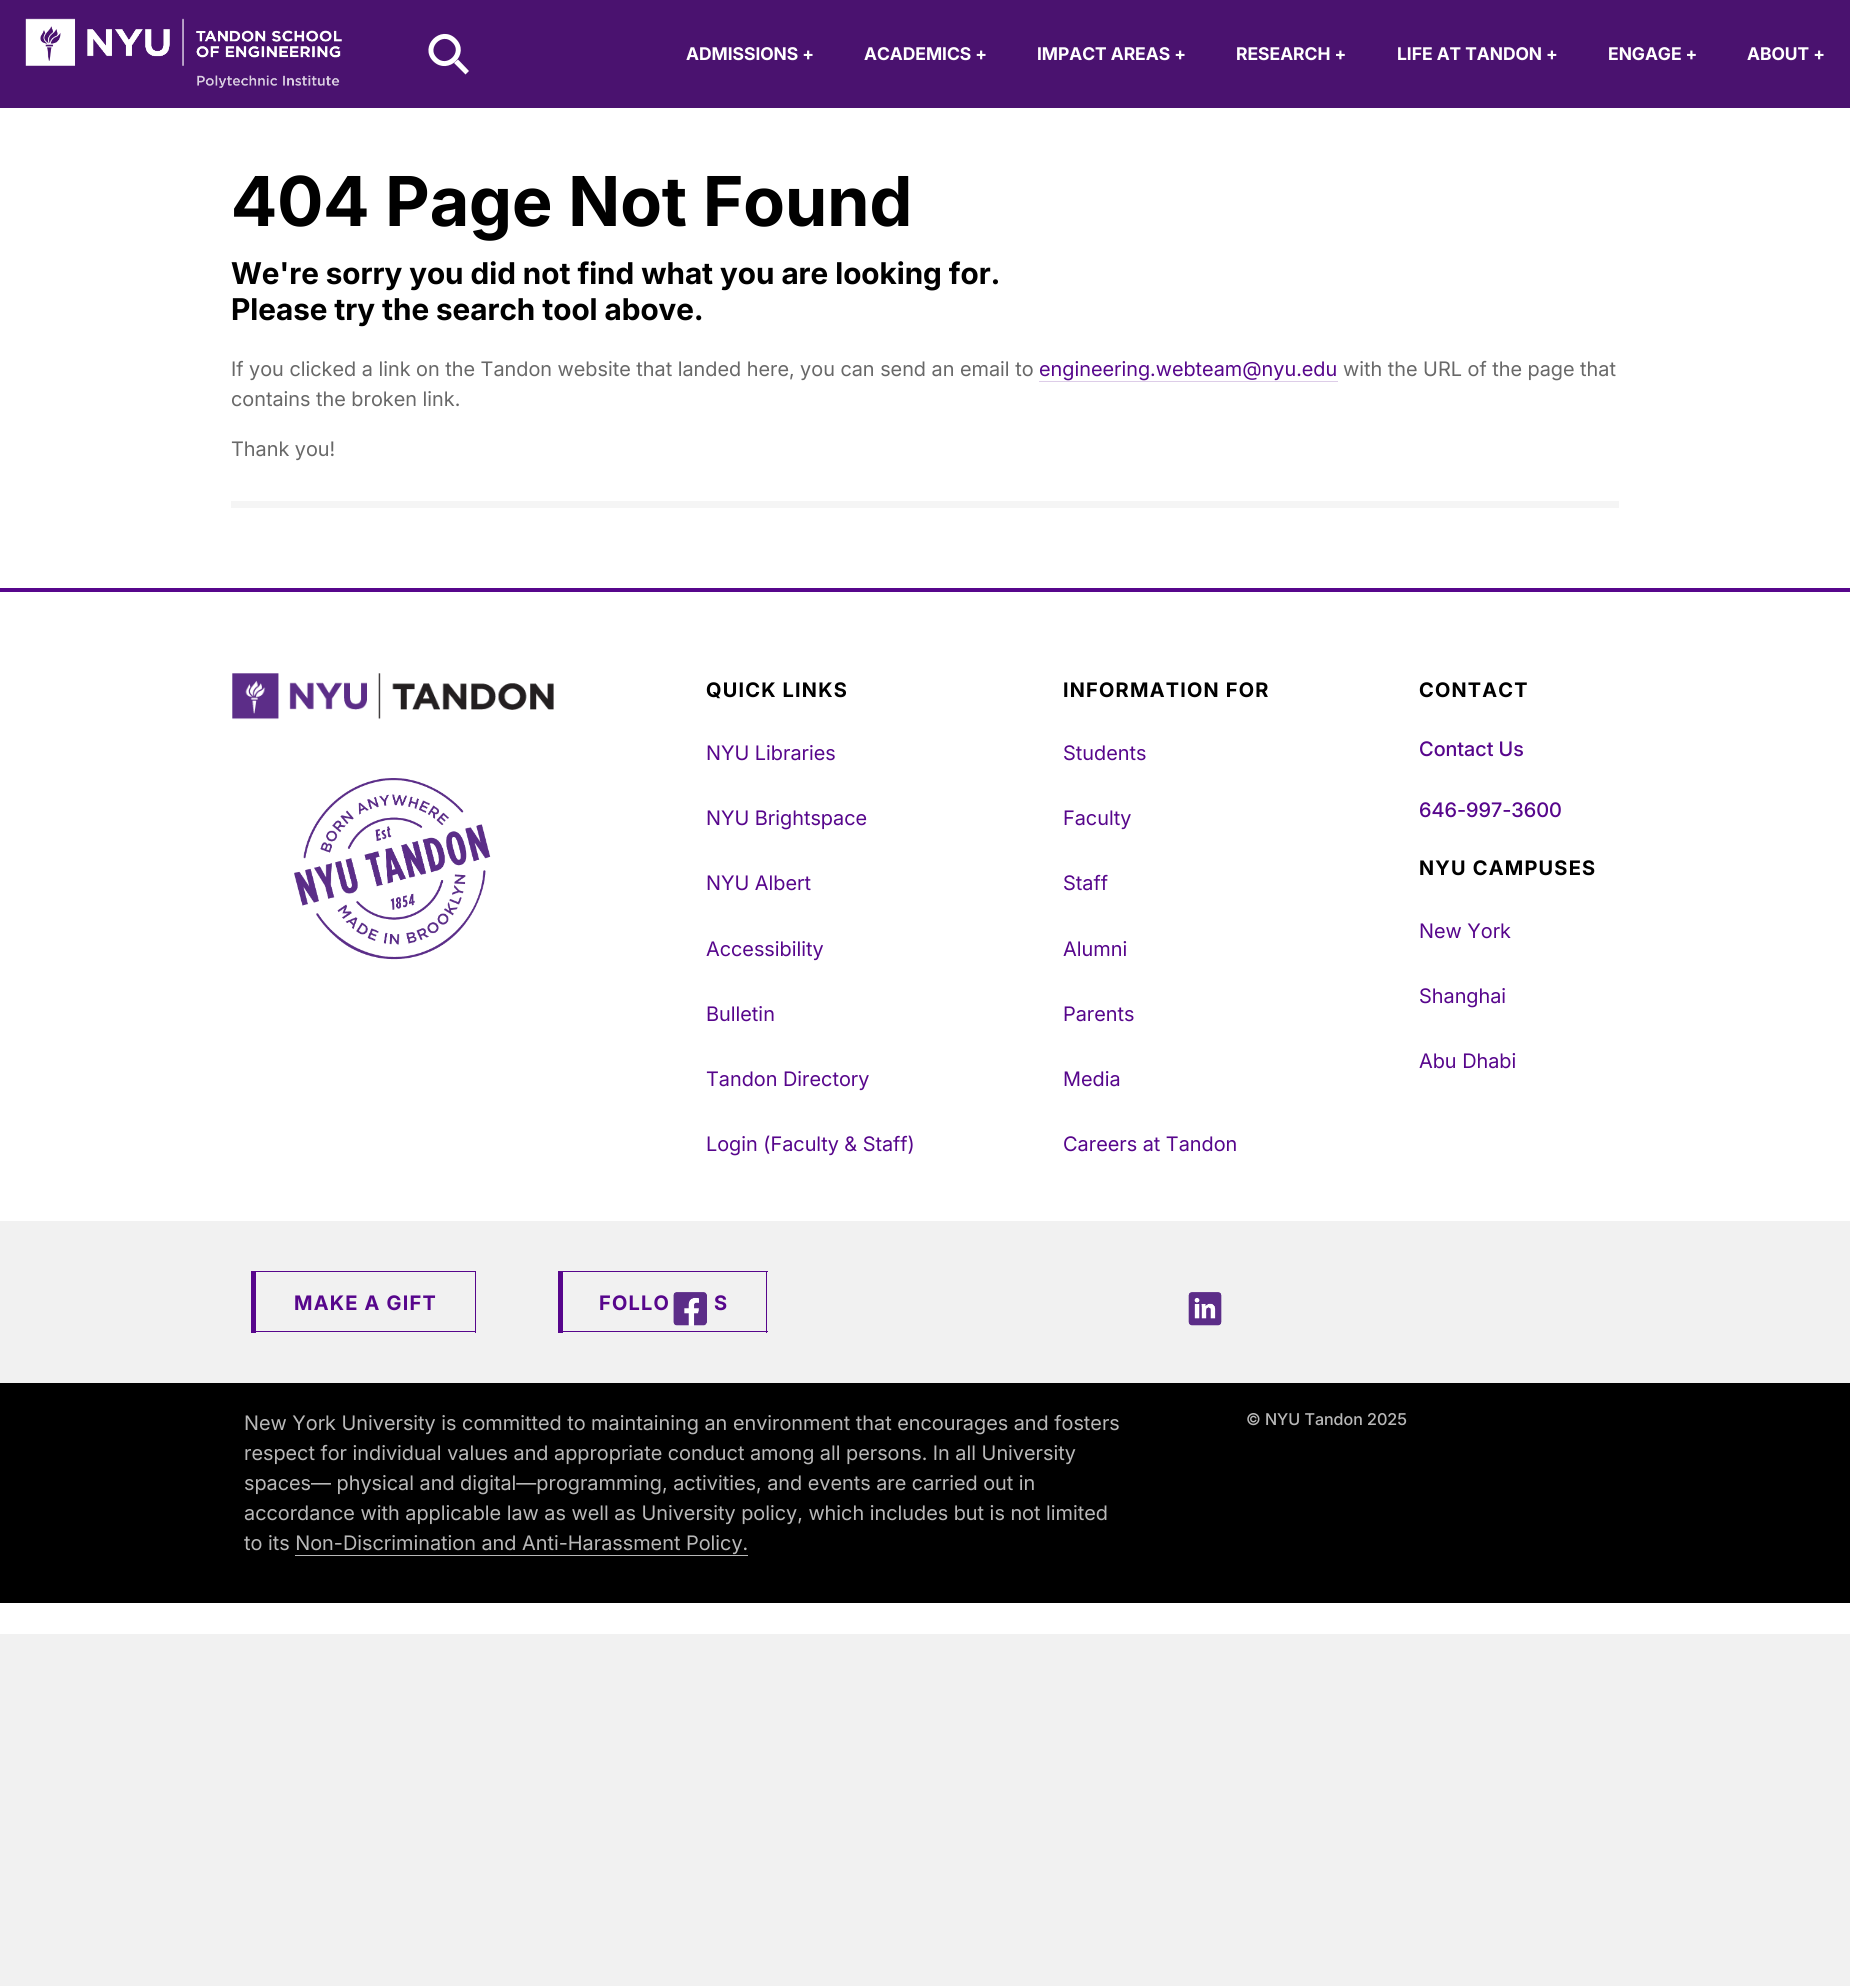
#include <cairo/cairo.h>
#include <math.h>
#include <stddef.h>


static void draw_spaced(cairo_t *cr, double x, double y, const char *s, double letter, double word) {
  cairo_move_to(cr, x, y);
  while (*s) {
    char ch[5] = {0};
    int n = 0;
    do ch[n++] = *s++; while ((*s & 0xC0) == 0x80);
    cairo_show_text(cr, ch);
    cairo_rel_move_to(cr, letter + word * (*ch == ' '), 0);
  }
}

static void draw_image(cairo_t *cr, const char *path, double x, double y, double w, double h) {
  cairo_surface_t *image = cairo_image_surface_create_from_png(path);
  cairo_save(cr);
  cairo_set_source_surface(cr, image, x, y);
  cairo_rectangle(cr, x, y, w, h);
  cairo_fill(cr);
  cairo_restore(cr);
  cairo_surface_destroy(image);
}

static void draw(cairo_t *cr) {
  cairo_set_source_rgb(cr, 241 / 255.0, 241 / 255.0, 241 / 255.0);
  cairo_paint(cr);
  cairo_set_source_rgb(cr, 1, 1, 1);
  cairo_rectangle(cr, 0, 108, 1850, 1526);
  cairo_fill(cr);
  cairo_set_source_rgb(cr, 74 / 255.0, 18 / 255.0, 111 / 255.0);
  cairo_rectangle(cr, 0, 0, 1850, 108);
  cairo_fill(cr);
  draw_image(cr, "images/1.png", 25, 18, 317, 70);
  cairo_set_source_rgb(cr, 1, 1, 1);
  cairo_new_path(cr);
  cairo_move_to(cr, 454, 63);
  cairo_line_to(cr, 458, 59.5);
  cairo_line_to(cr, 469, 71);
  cairo_line_to(cr, 465.5, 74.5);
  cairo_close_path(cr);
  cairo_fill(cr);
  cairo_new_path(cr);
  cairo_move_to(cr, 454, 40.5);
  cairo_curve_to(cr, 467, 53, 447.5, 72, 435, 59.5);
  cairo_curve_to(cr, 422.5, 47, 441.5, 28, 454, 40.5);
  cairo_close_path(cr);
  cairo_set_line_width(cr, 5);
  cairo_stroke(cr);
  cairo_set_source_rgb(cr, 221 / 255.0, 205 / 255.0, 232 / 255.0);
  cairo_rectangle(cr, 1039, 381, 299, 1);
  cairo_fill(cr);
  cairo_set_source_rgb(cr, 245 / 255.0, 245 / 255.0, 245 / 255.0);
  cairo_rectangle(cr, 231, 501, 1388, 7);
  cairo_fill(cr);
  cairo_set_source_rgb(cr, 87 / 255.0, 6 / 255.0, 140 / 255.0);
  cairo_rectangle(cr, 0, 588, 1850, 4);
  cairo_fill(cr);
  draw_image(cr, "images/2.png", 232, 673, 322, 47);
  draw_image(cr, "images/3.png", 294, 778, 197, 182);
  cairo_set_source_rgb(cr, 241 / 255.0, 241 / 255.0, 241 / 255.0);
  cairo_rectangle(cr, 0, 1221, 1850, 162);
  cairo_fill(cr);
  cairo_set_source_rgb(cr, 87 / 255.0, 6 / 255.0, 140 / 255.0);
  cairo_rectangle(cr, 251, 1271, 225, 1);
  cairo_fill(cr);
  cairo_rectangle(cr, 475, 1271, 1, 62);
  cairo_fill(cr);
  cairo_rectangle(cr, 251, 1331, 225, 1);
  cairo_fill(cr);
  cairo_rectangle(cr, 251, 1271, 5, 62);
  cairo_fill(cr);
  cairo_rectangle(cr, 558, 1271, 210, 1);
  cairo_fill(cr);
  cairo_rectangle(cr, 766, 1271, 1, 62);
  cairo_fill(cr);
  cairo_rectangle(cr, 558, 1331, 210, 1);
  cairo_fill(cr);
  cairo_rectangle(cr, 558, 1271, 5, 62);
  cairo_fill(cr);
  draw_image(cr, "images/4.png", 673, 1292, 34, 34);
  draw_image(cr, "images/5.png", 1188, 1292, 34, 34);
  cairo_set_source_rgb(cr, 0, 0, 0);
  cairo_rectangle(cr, 0, 1383, 1850, 220);
  cairo_fill(cr);
  cairo_set_source_rgb(cr, 184 / 255.0, 184 / 255.0, 184 / 255.0);
  cairo_rectangle(cr, 295, 1555, 453, 1);
  cairo_fill(cr);
  cairo_select_font_face(cr, "Inter", CAIRO_FONT_SLANT_NORMAL, CAIRO_FONT_WEIGHT_BOLD);
  cairo_set_font_size(cr, 17.5);
  cairo_set_source_rgb(cr, 1, 1, 1);
  cairo_move_to(cr, 686, 60);
  cairo_show_text(cr, "ADMISSIONS +");
  cairo_move_to(cr, 864, 60);
  cairo_show_text(cr, "ACADEMICS +");
  cairo_move_to(cr, 1037, 60);
  cairo_show_text(cr, "IMPACT AREAS +");
  cairo_move_to(cr, 1236, 60);
  cairo_show_text(cr, "RESEARCH +");
  cairo_move_to(cr, 1397, 60);
  cairo_show_text(cr, "LIFE AT TANDON +");
  cairo_move_to(cr, 1608, 60);
  cairo_show_text(cr, "ENGAGE +");
  cairo_move_to(cr, 1747, 60);
  cairo_show_text(cr, "ABOUT +");
  cairo_set_font_size(cr, 68.75);
  cairo_set_source_rgb(cr, 0, 0, 0);
  cairo_move_to(cr, 231, 226);
  cairo_show_text(cr, "404 Page Not Found");
  cairo_set_font_size(cr, 30);
  cairo_move_to(cr, 231, 284);
  cairo_show_text(cr, "We're sorry you did not find what you are looking for.");
  cairo_move_to(cr, 231, 320);
  cairo_show_text(cr, "Please try the search tool above.");
  cairo_select_font_face(cr, "Inter", CAIRO_FONT_SLANT_NORMAL, CAIRO_FONT_WEIGHT_NORMAL);
  cairo_set_font_size(cr, 20);
  cairo_set_source_rgb(cr, 104 / 255.0, 104 / 255.0, 104 / 255.0);
  cairo_move_to(cr, 231, 376);
  cairo_show_text(cr, "If you clicked a link on the Tandon website that landed here, you can send an email to");
  cairo_set_source_rgb(cr, 87 / 255.0, 6 / 255.0, 140 / 255.0);
  cairo_move_to(cr, 1039, 376);
  cairo_show_text(cr, "engineering.webteam@nyu.edu");
  cairo_set_source_rgb(cr, 104 / 255.0, 104 / 255.0, 104 / 255.0);
  cairo_move_to(cr, 1343, 376);
  cairo_show_text(cr, "with the URL of the page that");
  cairo_move_to(cr, 231, 406);
  cairo_show_text(cr, "contains the broken link.");
  cairo_move_to(cr, 231, 456);
  cairo_show_text(cr, "Thank you!");
  cairo_select_font_face(cr, "Inter", CAIRO_FONT_SLANT_NORMAL, CAIRO_FONT_WEIGHT_BOLD);
  cairo_set_source_rgb(cr, 0, 0, 0);
  draw_spaced(cr, 706, 697, "QUICK LINKS", 1.25, 0);
  cairo_select_font_face(cr, "Inter", CAIRO_FONT_SLANT_NORMAL, CAIRO_FONT_WEIGHT_NORMAL);
  cairo_set_source_rgb(cr, 87 / 255.0, 6 / 255.0, 140 / 255.0);
  cairo_move_to(cr, 706, 760);
  cairo_show_text(cr, "NYU Libraries");
  cairo_move_to(cr, 706, 825);
  cairo_show_text(cr, "NYU Brightspace");
  cairo_move_to(cr, 706, 890);
  cairo_show_text(cr, "NYU Albert");
  cairo_move_to(cr, 706, 956);
  cairo_show_text(cr, "Accessibility");
  cairo_move_to(cr, 706, 1021);
  cairo_show_text(cr, "Bulletin");
  cairo_move_to(cr, 706, 1086);
  cairo_show_text(cr, "Tandon Directory");
  cairo_move_to(cr, 706, 1151);
  cairo_show_text(cr, "Login (Faculty & Staff)");
  cairo_select_font_face(cr, "Inter", CAIRO_FONT_SLANT_NORMAL, CAIRO_FONT_WEIGHT_BOLD);
  cairo_set_source_rgb(cr, 0, 0, 0);
  draw_spaced(cr, 1063, 697, "INFORMATION FOR", 1.25, 0);
  cairo_select_font_face(cr, "Inter", CAIRO_FONT_SLANT_NORMAL, CAIRO_FONT_WEIGHT_NORMAL);
  cairo_set_source_rgb(cr, 87 / 255.0, 6 / 255.0, 140 / 255.0);
  cairo_move_to(cr, 1063, 760);
  cairo_show_text(cr, "Students");
  cairo_move_to(cr, 1063, 825);
  cairo_show_text(cr, "Faculty");
  cairo_move_to(cr, 1063, 890);
  cairo_show_text(cr, "Staff");
  cairo_move_to(cr, 1063, 956);
  cairo_show_text(cr, "Alumni");
  cairo_move_to(cr, 1063, 1021);
  cairo_show_text(cr, "Parents");
  cairo_move_to(cr, 1063, 1086);
  cairo_show_text(cr, "Media");
  cairo_move_to(cr, 1063, 1151);
  cairo_show_text(cr, "Careers at Tandon");
  cairo_select_font_face(cr, "Inter", CAIRO_FONT_SLANT_NORMAL, CAIRO_FONT_WEIGHT_BOLD);
  cairo_set_source_rgb(cr, 0, 0, 0);
  draw_spaced(cr, 1419, 697, "CONTACT", 1.25, 0);
  cairo_select_font_face(cr, "Inter Medium", CAIRO_FONT_SLANT_NORMAL, CAIRO_FONT_WEIGHT_NORMAL);
  cairo_set_source_rgb(cr, 87 / 255.0, 6 / 255.0, 140 / 255.0);
  cairo_move_to(cr, 1419, 756);
  cairo_show_text(cr, "Contact Us");
  cairo_move_to(cr, 1419, 817);
  cairo_show_text(cr, "646-997-3600");
  cairo_select_font_face(cr, "Inter", CAIRO_FONT_SLANT_NORMAL, CAIRO_FONT_WEIGHT_BOLD);
  cairo_set_source_rgb(cr, 0, 0, 0);
  draw_spaced(cr, 1419, 875, "NYU CAMPUSES", 1.25, 0);
  cairo_select_font_face(cr, "Inter", CAIRO_FONT_SLANT_NORMAL, CAIRO_FONT_WEIGHT_NORMAL);
  cairo_set_source_rgb(cr, 87 / 255.0, 6 / 255.0, 140 / 255.0);
  cairo_move_to(cr, 1419, 938);
  cairo_show_text(cr, "New York");
  cairo_move_to(cr, 1419, 1003);
  cairo_show_text(cr, "Shanghai");
  cairo_move_to(cr, 1419, 1068);
  cairo_show_text(cr, "Abu Dhabi");
  cairo_select_font_face(cr, "Inter", CAIRO_FONT_SLANT_NORMAL, CAIRO_FONT_WEIGHT_BOLD);
  draw_spaced(cr, 294, 1310, "MAKE A GIFT", 1.25, 0);
  draw_spaced(cr, 599, 1310, "FOLLO", 1.25, 0);
  draw_spaced(cr, 714, 1310, "S", 1.25, 0);
  cairo_select_font_face(cr, "Inter", CAIRO_FONT_SLANT_NORMAL, CAIRO_FONT_WEIGHT_NORMAL);
  cairo_set_source_rgb(cr, 184 / 255.0, 184 / 255.0, 184 / 255.0);
  cairo_move_to(cr, 244, 1430);
  cairo_show_text(cr, "New York University is committed to maintaining an environment that encourages and fosters");
  cairo_move_to(cr, 244, 1460);
  cairo_show_text(cr, "respect for individual values and appropriate conduct among all persons. In all University");
  cairo_move_to(cr, 244, 1490);
  cairo_show_text(cr, "spaces— physical and digital—programming, activities, and events are carried out in");
  cairo_move_to(cr, 244, 1520);
  cairo_show_text(cr, "accordance with applicable law as well as University policy, which includes but is not limited");
  cairo_move_to(cr, 244, 1550);
  cairo_show_text(cr, "to its Non-Discrimination and Anti-Harassment Policy.");
  cairo_select_font_face(cr, "Inter Medium", CAIRO_FONT_SLANT_NORMAL, CAIRO_FONT_WEIGHT_NORMAL);
  cairo_set_font_size(cr, 16.25);
  cairo_move_to(cr, 1246, 1425);
  cairo_show_text(cr, "© NYU Tandon 2025");
}

int main(void) {
  cairo_surface_t *surface = cairo_image_surface_create(CAIRO_FORMAT_RGB24, 1850, 1986);
  cairo_t *cr = cairo_create(surface);
  cairo_font_options_t *options = cairo_font_options_create();
  cairo_font_options_set_hint_metrics(options, CAIRO_HINT_METRICS_OFF);
  cairo_font_options_set_hint_style(options, CAIRO_HINT_STYLE_NONE);
  cairo_set_font_options(cr, options);
  cairo_set_miter_limit(cr, 4);
  draw(cr);
  cairo_surface_write_to_png(surface, "out.png");
  cairo_font_options_destroy(options);
  cairo_destroy(cr);
  cairo_surface_destroy(surface);
  return 0;
}
